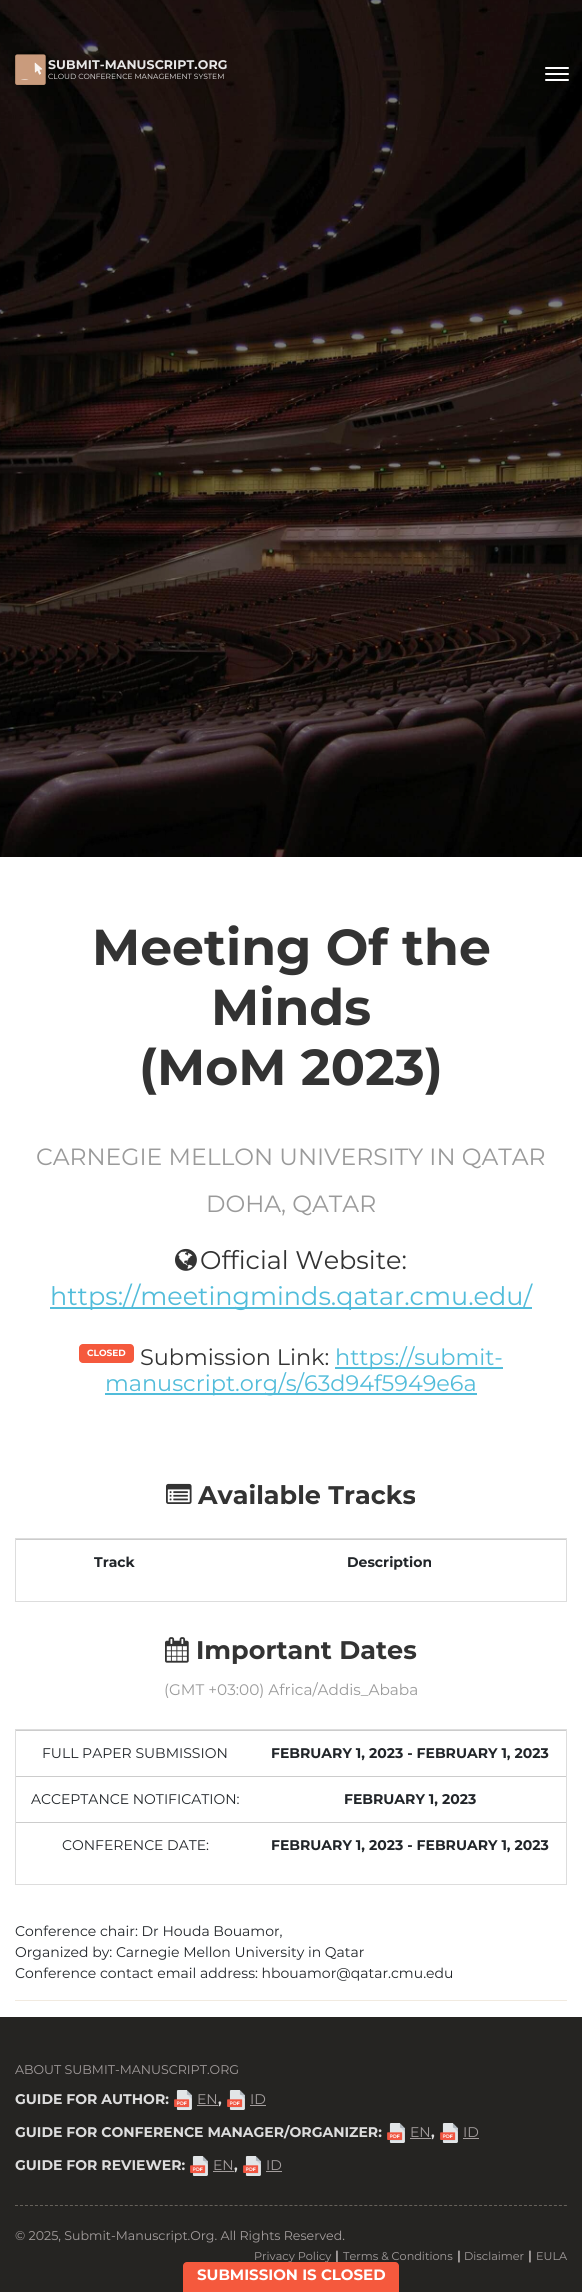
#include <cairo/cairo.h>
#include <math.h>
#include <stddef.h>


static void draw_spaced(cairo_t *cr, double x, double y, const char *s, double letter, double word) {
  cairo_move_to(cr, x, y);
  while (*s) {
    char ch[5] = {0};
    int n = 0;
    do ch[n++] = *s++; while ((*s & 0xC0) == 0x80);
    cairo_show_text(cr, ch);
    cairo_rel_move_to(cr, letter + word * (*ch == ' '), 0);
  }
}

static void rounded_rect(cairo_t *cr, double x, double y, double w, double h, double r) {
  cairo_new_sub_path(cr);
  cairo_arc(cr, x + w - r, y + h - r, r, 0, M_PI / 2);
  cairo_arc(cr, x + r, y + h - r, r, M_PI / 2, M_PI);
  cairo_arc(cr, x + r, y + r, r, M_PI, 1.5 * M_PI);
  cairo_arc(cr, x + w - r, y + r, r, 1.5 * M_PI, 2 * M_PI);
  cairo_close_path(cr);
}

static void draw_image(cairo_t *cr, const char *path, double x, double y, double w, double h) {
  cairo_surface_t *image = cairo_image_surface_create_from_png(path);
  cairo_save(cr);
  cairo_set_source_surface(cr, image, x, y);
  cairo_rectangle(cr, x, y, w, h);
  cairo_fill(cr);
  cairo_restore(cr);
  cairo_surface_destroy(image);
}

static void draw(cairo_t *cr) {
  cairo_set_source_rgb(cr, 1, 1, 1);
  cairo_paint(cr);
  draw_image(cr, "images/1.png", 0, 0, 582, 857);
  draw_image(cr, "images/2.png", 15, 54, 31, 31);
  cairo_set_source_rgb(cr, 1, 1, 1);
  rounded_rect(cr, 545, 67, 24, 2, 1);
  cairo_fill(cr);
  rounded_rect(cr, 545, 73, 24, 2, 1);
  cairo_fill(cr);
  rounded_rect(cr, 545, 79, 24, 2, 1);
  cairo_fill(cr);
  draw_image(cr, "images/3.png", 175, 1248, 22, 23);
  cairo_set_source_rgb(cr, 81 / 255.0, 188 / 255.0, 218 / 255.0);
  cairo_rectangle(cr, 50, 1307, 482, 2);
  cairo_fill(cr);
  cairo_set_source_rgb(cr, 245 / 255.0, 89 / 255.0, 61 / 255.0);
  rounded_rect(cr, 79, 1344, 55, 19, 4);
  cairo_fill(cr);
  cairo_set_source_rgb(cr, 81 / 255.0, 188 / 255.0, 218 / 255.0);
  cairo_rectangle(cr, 335, 1367, 168, 2);
  cairo_fill(cr);
  cairo_rectangle(cr, 105, 1393, 372, 2);
  cairo_fill(cr);
  draw_image(cr, "images/4.png", 166, 1483, 26, 21);
  cairo_rectangle(cr, 15.5, 1538.5, 551, 63);
  cairo_set_source_rgb(cr, 221 / 255.0, 221 / 255.0, 221 / 255.0);
  cairo_set_line_width(cr, 1);
  cairo_stroke(cr);
  cairo_set_source_rgb(cr, 204 / 255.0, 204 / 255.0, 204 / 255.0);
  cairo_rectangle(cr, 16, 1539, 550, 1);
  cairo_fill(cr);
  draw_image(cr, "images/5.png", 165, 1637, 24, 26);
  cairo_rectangle(cr, 15.5, 1729.5, 551, 155);
  cairo_set_source_rgb(cr, 221 / 255.0, 221 / 255.0, 221 / 255.0);
  cairo_stroke(cr);
  cairo_set_source_rgb(cr, 204 / 255.0, 204 / 255.0, 204 / 255.0);
  cairo_rectangle(cr, 16, 1730, 550, 1);
  cairo_fill(cr);
  cairo_rectangle(cr, 16, 1776, 550, 1);
  cairo_fill(cr);
  cairo_rectangle(cr, 16, 1822, 550, 1);
  cairo_fill(cr);
  cairo_set_source_rgb(cr, 241 / 255.0, 234 / 255.0, 224 / 255.0);
  cairo_rectangle(cr, 15, 2000, 552, 1);
  cairo_fill(cr);
  cairo_set_source_rgb(cr, 37 / 255.0, 36 / 255.0, 34 / 255.0);
  cairo_rectangle(cr, 0, 2017, 582, 275);
  cairo_fill(cr);
  draw_image(cr, "images/6.png", 174, 2090, 18, 20);
  cairo_set_source_rgb(cr, 164 / 255.0, 158 / 255.0, 158 / 255.0);
  cairo_rectangle(cr, 197, 2105, 21, 1);
  cairo_fill(cr);
  draw_image(cr, "images/6.png", 227, 2090, 18, 20);
  cairo_rectangle(cr, 250, 2105, 16, 1);
  cairo_fill(cr);
  draw_image(cr, "images/7.png", 387, 2123, 18, 20);
  cairo_rectangle(cr, 410, 2138, 21, 1);
  cairo_fill(cr);
  draw_image(cr, "images/7.png", 440, 2123, 18, 20);
  cairo_rectangle(cr, 463, 2138, 16, 1);
  cairo_fill(cr);
  draw_image(cr, "images/7.png", 190, 2156, 18, 20);
  cairo_rectangle(cr, 213, 2171, 21, 1);
  cairo_fill(cr);
  draw_image(cr, "images/8.png", 243, 2156, 18, 20);
  cairo_rectangle(cr, 266, 2171, 16, 1);
  cairo_fill(cr);
  cairo_new_path(cr);
  cairo_move_to(cr, 15, 2205.5);
  cairo_line_to(cr, 567, 2205.5);
  cairo_set_source_rgb(cr, 102 / 255.0, 97 / 255.0, 91 / 255.0);
  cairo_set_dash(cr, (double[]){3, 1.99}, 2, 0);
  cairo_stroke(cr);
  cairo_select_font_face(cr, "Montserrat", CAIRO_FONT_SLANT_NORMAL, CAIRO_FONT_WEIGHT_BOLD);
  cairo_set_font_size(cr, 12.5);
  cairo_set_source_rgb(cr, 232 / 255.0, 231 / 255.0, 231 / 255.0);
  draw_spaced(cr, 48, 69, "SUBMIT-MANUSCRIPT.ORG", 0.1, 0);
  cairo_select_font_face(cr, "Montserrat Thin", CAIRO_FONT_SLANT_NORMAL, CAIRO_FONT_WEIGHT_NORMAL);
  cairo_set_font_size(cr, 7.5);
  cairo_move_to(cr, 48, 79);
  cairo_show_text(cr, "CLOUD CONFERENCE MANAGEMENT SYSTEM");
  cairo_select_font_face(cr, "Montserrat", CAIRO_FONT_SLANT_NORMAL, CAIRO_FONT_WEIGHT_BOLD);
  cairo_set_font_size(cr, 50.5);
  cairo_set_source_rgb(cr, 51 / 255.0, 51 / 255.0, 51 / 255.0);
  cairo_move_to(cr, 92, 965);
  cairo_show_text(cr, "Meeting Of the");
  cairo_move_to(cr, 211, 1025);
  cairo_show_text(cr, "Minds");
  cairo_move_to(cr, 139, 1085);
  cairo_show_text(cr, "(MoM 2023)");
  cairo_select_font_face(cr, "Montserrat Thin", CAIRO_FONT_SLANT_NORMAL, CAIRO_FONT_WEIGHT_NORMAL);
  cairo_set_font_size(cr, 23.5);
  cairo_set_source_rgb(cr, 154 / 255.0, 154 / 255.0, 154 / 255.0);
  cairo_move_to(cr, 36, 1165);
  cairo_show_text(cr, "CARNEGIE MELLON UNIVERSITY IN QATAR");
  cairo_move_to(cr, 206, 1212);
  cairo_show_text(cr, "DOHA, QATAR");
  cairo_set_font_size(cr, 25.5);
  cairo_set_source_rgb(cr, 51 / 255.0, 51 / 255.0, 51 / 255.0);
  cairo_move_to(cr, 200, 1269);
  cairo_show_text(cr, "Official Website:");
  cairo_set_source_rgb(cr, 81 / 255.0, 188 / 255.0, 218 / 255.0);
  cairo_move_to(cr, 50, 1305);
  cairo_show_text(cr, "https://meetingminds.qatar.cmu.edu/");
  cairo_select_font_face(cr, "Montserrat", CAIRO_FONT_SLANT_NORMAL, CAIRO_FONT_WEIGHT_BOLD);
  cairo_set_font_size(cr, 9);
  cairo_set_source_rgb(cr, 1, 1, 1);
  cairo_move_to(cr, 87, 1356);
  cairo_show_text(cr, "CLOSED");
  cairo_select_font_face(cr, "Montserrat Thin", CAIRO_FONT_SLANT_NORMAL, CAIRO_FONT_WEIGHT_NORMAL);
  cairo_set_font_size(cr, 22.4);
  cairo_set_source_rgb(cr, 51 / 255.0, 51 / 255.0, 51 / 255.0);
  cairo_move_to(cr, 140, 1365);
  cairo_show_text(cr, "Submission Link:");
  cairo_set_source_rgb(cr, 81 / 255.0, 188 / 255.0, 218 / 255.0);
  cairo_move_to(cr, 335, 1365);
  cairo_show_text(cr, "https://submit-");
  cairo_move_to(cr, 105, 1391);
  cairo_show_text(cr, "manuscript.org/s/63d94f5949e6a");
  cairo_select_font_face(cr, "Montserrat", CAIRO_FONT_SLANT_NORMAL, CAIRO_FONT_WEIGHT_BOLD);
  cairo_set_font_size(cr, 25.5);
  cairo_set_source_rgb(cr, 51 / 255.0, 51 / 255.0, 51 / 255.0);
  cairo_move_to(cr, 198, 1504);
  cairo_show_text(cr, "Available Tracks");
  cairo_set_font_size(cr, 14);
  cairo_set_source_rgb(cr, 33 / 255.0, 37 / 255.0, 41 / 255.0);
  cairo_move_to(cr, 94, 1567);
  cairo_show_text(cr, "Track");
  cairo_move_to(cr, 347, 1567);
  cairo_show_text(cr, "Description");
  cairo_set_font_size(cr, 25.5);
  cairo_set_source_rgb(cr, 51 / 255.0, 51 / 255.0, 51 / 255.0);
  cairo_move_to(cr, 196, 1659);
  cairo_show_text(cr, "Important Dates");
  cairo_select_font_face(cr, "Montserrat Thin", CAIRO_FONT_SLANT_NORMAL, CAIRO_FONT_WEIGHT_NORMAL);
  cairo_set_font_size(cr, 15.3);
  cairo_set_source_rgb(cr, 154 / 255.0, 154 / 255.0, 154 / 255.0);
  cairo_move_to(cr, 164, 1695);
  cairo_show_text(cr, "(GMT +03:00) Africa/Addis_Ababa");
  cairo_set_font_size(cr, 14);
  cairo_set_source_rgb(cr, 33 / 255.0, 37 / 255.0, 41 / 255.0);
  cairo_move_to(cr, 42, 1758);
  cairo_show_text(cr, "FULL PAPER SUBMISSION");
  cairo_select_font_face(cr, "Montserrat", CAIRO_FONT_SLANT_NORMAL, CAIRO_FONT_WEIGHT_BOLD);
  cairo_move_to(cr, 271, 1758);
  cairo_show_text(cr, "FEBRUARY 1, 2023 - FEBRUARY 1, 2023");
  cairo_select_font_face(cr, "Montserrat Thin", CAIRO_FONT_SLANT_NORMAL, CAIRO_FONT_WEIGHT_NORMAL);
  cairo_move_to(cr, 31, 1804);
  cairo_show_text(cr, "ACCEPTANCE NOTIFICATION:");
  cairo_select_font_face(cr, "Montserrat", CAIRO_FONT_SLANT_NORMAL, CAIRO_FONT_WEIGHT_BOLD);
  cairo_move_to(cr, 344, 1804);
  cairo_show_text(cr, "FEBRUARY 1, 2023");
  cairo_select_font_face(cr, "Montserrat Thin", CAIRO_FONT_SLANT_NORMAL, CAIRO_FONT_WEIGHT_NORMAL);
  cairo_move_to(cr, 62, 1850);
  cairo_show_text(cr, "CONFERENCE DATE:");
  cairo_select_font_face(cr, "Montserrat", CAIRO_FONT_SLANT_NORMAL, CAIRO_FONT_WEIGHT_BOLD);
  cairo_move_to(cr, 271, 1850);
  cairo_show_text(cr, "FEBRUARY 1, 2023 - FEBRUARY 1, 2023");
  cairo_select_font_face(cr, "Montserrat Thin", CAIRO_FONT_SLANT_NORMAL, CAIRO_FONT_WEIGHT_NORMAL);
  cairo_move_to(cr, 15, 1936);
  cairo_show_text(cr, "Conference chair: Dr Houda Bouamor,");
  cairo_move_to(cr, 15, 1957);
  cairo_show_text(cr, "Organized by: Carnegie Mellon University in Qatar");
  cairo_move_to(cr, 15, 1978);
  cairo_show_text(cr, "Conference contact email address: hbouamor@qatar.cmu.edu");
  cairo_set_font_size(cr, 12.6);
  cairo_set_source_rgb(cr, 164 / 255.0, 158 / 255.0, 158 / 255.0);
  cairo_move_to(cr, 15, 2074);
  cairo_show_text(cr, "ABOUT SUBMIT-MANUSCRIPT.ORG");
  cairo_select_font_face(cr, "Montserrat", CAIRO_FONT_SLANT_NORMAL, CAIRO_FONT_WEIGHT_BOLD);
  cairo_set_font_size(cr, 14);
  cairo_set_source_rgb(cr, 221 / 255.0, 221 / 255.0, 221 / 255.0);
  cairo_move_to(cr, 15, 2104);
  cairo_show_text(cr, "GUIDE FOR AUTHOR:");
  cairo_select_font_face(cr, "Montserrat Thin", CAIRO_FONT_SLANT_NORMAL, CAIRO_FONT_WEIGHT_NORMAL);
  cairo_set_source_rgb(cr, 164 / 255.0, 158 / 255.0, 158 / 255.0);
  cairo_move_to(cr, 197, 2104);
  cairo_show_text(cr, "EN");
  cairo_select_font_face(cr, "Montserrat", CAIRO_FONT_SLANT_NORMAL, CAIRO_FONT_WEIGHT_BOLD);
  cairo_set_source_rgb(cr, 221 / 255.0, 221 / 255.0, 221 / 255.0);
  cairo_move_to(cr, 218, 2104);
  cairo_show_text(cr, ",");
  cairo_select_font_face(cr, "Montserrat Thin", CAIRO_FONT_SLANT_NORMAL, CAIRO_FONT_WEIGHT_NORMAL);
  cairo_set_source_rgb(cr, 164 / 255.0, 158 / 255.0, 158 / 255.0);
  cairo_move_to(cr, 250, 2104);
  cairo_show_text(cr, "ID");
  cairo_select_font_face(cr, "Montserrat", CAIRO_FONT_SLANT_NORMAL, CAIRO_FONT_WEIGHT_BOLD);
  cairo_set_source_rgb(cr, 221 / 255.0, 221 / 255.0, 221 / 255.0);
  cairo_move_to(cr, 15, 2137);
  cairo_show_text(cr, "GUIDE FOR CONFERENCE MANAGER/ORGANIZER:");
  cairo_select_font_face(cr, "Montserrat Thin", CAIRO_FONT_SLANT_NORMAL, CAIRO_FONT_WEIGHT_NORMAL);
  cairo_set_source_rgb(cr, 164 / 255.0, 158 / 255.0, 158 / 255.0);
  cairo_move_to(cr, 410, 2137);
  cairo_show_text(cr, "EN");
  cairo_select_font_face(cr, "Montserrat", CAIRO_FONT_SLANT_NORMAL, CAIRO_FONT_WEIGHT_BOLD);
  cairo_set_source_rgb(cr, 221 / 255.0, 221 / 255.0, 221 / 255.0);
  cairo_move_to(cr, 431, 2137);
  cairo_show_text(cr, ",");
  cairo_select_font_face(cr, "Montserrat Thin", CAIRO_FONT_SLANT_NORMAL, CAIRO_FONT_WEIGHT_NORMAL);
  cairo_set_source_rgb(cr, 164 / 255.0, 158 / 255.0, 158 / 255.0);
  cairo_move_to(cr, 463, 2137);
  cairo_show_text(cr, "ID");
  cairo_select_font_face(cr, "Montserrat", CAIRO_FONT_SLANT_NORMAL, CAIRO_FONT_WEIGHT_BOLD);
  cairo_set_source_rgb(cr, 221 / 255.0, 221 / 255.0, 221 / 255.0);
  cairo_move_to(cr, 15, 2170);
  cairo_show_text(cr, "GUIDE FOR REVIEWER:");
  cairo_select_font_face(cr, "Montserrat Thin", CAIRO_FONT_SLANT_NORMAL, CAIRO_FONT_WEIGHT_NORMAL);
  cairo_set_source_rgb(cr, 164 / 255.0, 158 / 255.0, 158 / 255.0);
  cairo_move_to(cr, 213, 2170);
  cairo_show_text(cr, "EN");
  cairo_select_font_face(cr, "Montserrat", CAIRO_FONT_SLANT_NORMAL, CAIRO_FONT_WEIGHT_BOLD);
  cairo_set_source_rgb(cr, 221 / 255.0, 221 / 255.0, 221 / 255.0);
  cairo_move_to(cr, 234, 2170);
  cairo_show_text(cr, ",");
  cairo_select_font_face(cr, "Montserrat Thin", CAIRO_FONT_SLANT_NORMAL, CAIRO_FONT_WEIGHT_NORMAL);
  cairo_set_source_rgb(cr, 164 / 255.0, 158 / 255.0, 158 / 255.0);
  cairo_move_to(cr, 266, 2170);
  cairo_show_text(cr, "ID");
  cairo_set_font_size(cr, 12.6);
  cairo_move_to(cr, 15, 2240);
  cairo_show_text(cr, "© 2025, Submit-Manuscript.Org. All Rights Reserved.");
  cairo_set_font_size(cr, 11.25);
  cairo_move_to(cr, 254, 2260);
  cairo_show_text(cr, "Privacy Policy");
  cairo_select_font_face(cr, "Montserrat", CAIRO_FONT_SLANT_NORMAL, CAIRO_FONT_WEIGHT_BOLD);
  cairo_set_font_size(cr, 12.6);
  cairo_move_to(cr, 335, 2260);
  cairo_show_text(cr, "|");
  cairo_select_font_face(cr, "Montserrat Thin", CAIRO_FONT_SLANT_NORMAL, CAIRO_FONT_WEIGHT_NORMAL);
  cairo_set_font_size(cr, 11.25);
  cairo_move_to(cr, 343, 2260);
  cairo_show_text(cr, "Terms & Conditions");
  cairo_select_font_face(cr, "Montserrat", CAIRO_FONT_SLANT_NORMAL, CAIRO_FONT_WEIGHT_BOLD);
  cairo_set_font_size(cr, 12.6);
  cairo_move_to(cr, 457, 2260);
  cairo_show_text(cr, "|");
  cairo_select_font_face(cr, "Montserrat Thin", CAIRO_FONT_SLANT_NORMAL, CAIRO_FONT_WEIGHT_NORMAL);
  cairo_set_font_size(cr, 11.25);
  cairo_move_to(cr, 464, 2260);
  cairo_show_text(cr, "Disclaimer");
  cairo_select_font_face(cr, "Montserrat", CAIRO_FONT_SLANT_NORMAL, CAIRO_FONT_WEIGHT_BOLD);
  cairo_set_font_size(cr, 12.6);
  cairo_move_to(cr, 528, 2260);
  cairo_show_text(cr, "|");
  cairo_select_font_face(cr, "Montserrat Thin", CAIRO_FONT_SLANT_NORMAL, CAIRO_FONT_WEIGHT_NORMAL);
  cairo_set_font_size(cr, 11.25);
  cairo_move_to(cr, 536, 2260);
  cairo_show_text(cr, "EULA");
  cairo_set_source_rgb(cr, 245 / 255.0, 89 / 255.0, 61 / 255.0);
  rounded_rect(cr, 183, 2262, 216, 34, 4);
  cairo_fill(cr);
  cairo_select_font_face(cr, "Montserrat", CAIRO_FONT_SLANT_NORMAL, CAIRO_FONT_WEIGHT_BOLD);
  cairo_set_font_size(cr, 15);
  cairo_set_source_rgb(cr, 1, 1, 1);
  cairo_move_to(cr, 197, 2280);
  cairo_show_text(cr, "SUBMISSION IS CLOSED");
}

int main(void) {
  cairo_surface_t *surface = cairo_image_surface_create(CAIRO_FORMAT_RGB24, 582, 2292);
  cairo_t *cr = cairo_create(surface);
  cairo_font_options_t *options = cairo_font_options_create();
  cairo_font_options_set_hint_metrics(options, CAIRO_HINT_METRICS_OFF);
  cairo_font_options_set_hint_style(options, CAIRO_HINT_STYLE_NONE);
  cairo_set_font_options(cr, options);
  cairo_set_miter_limit(cr, 4);
  draw(cr);
  cairo_surface_write_to_png(surface, "out.png");
  cairo_font_options_destroy(options);
  cairo_destroy(cr);
  cairo_surface_destroy(surface);
  return 0;
}
